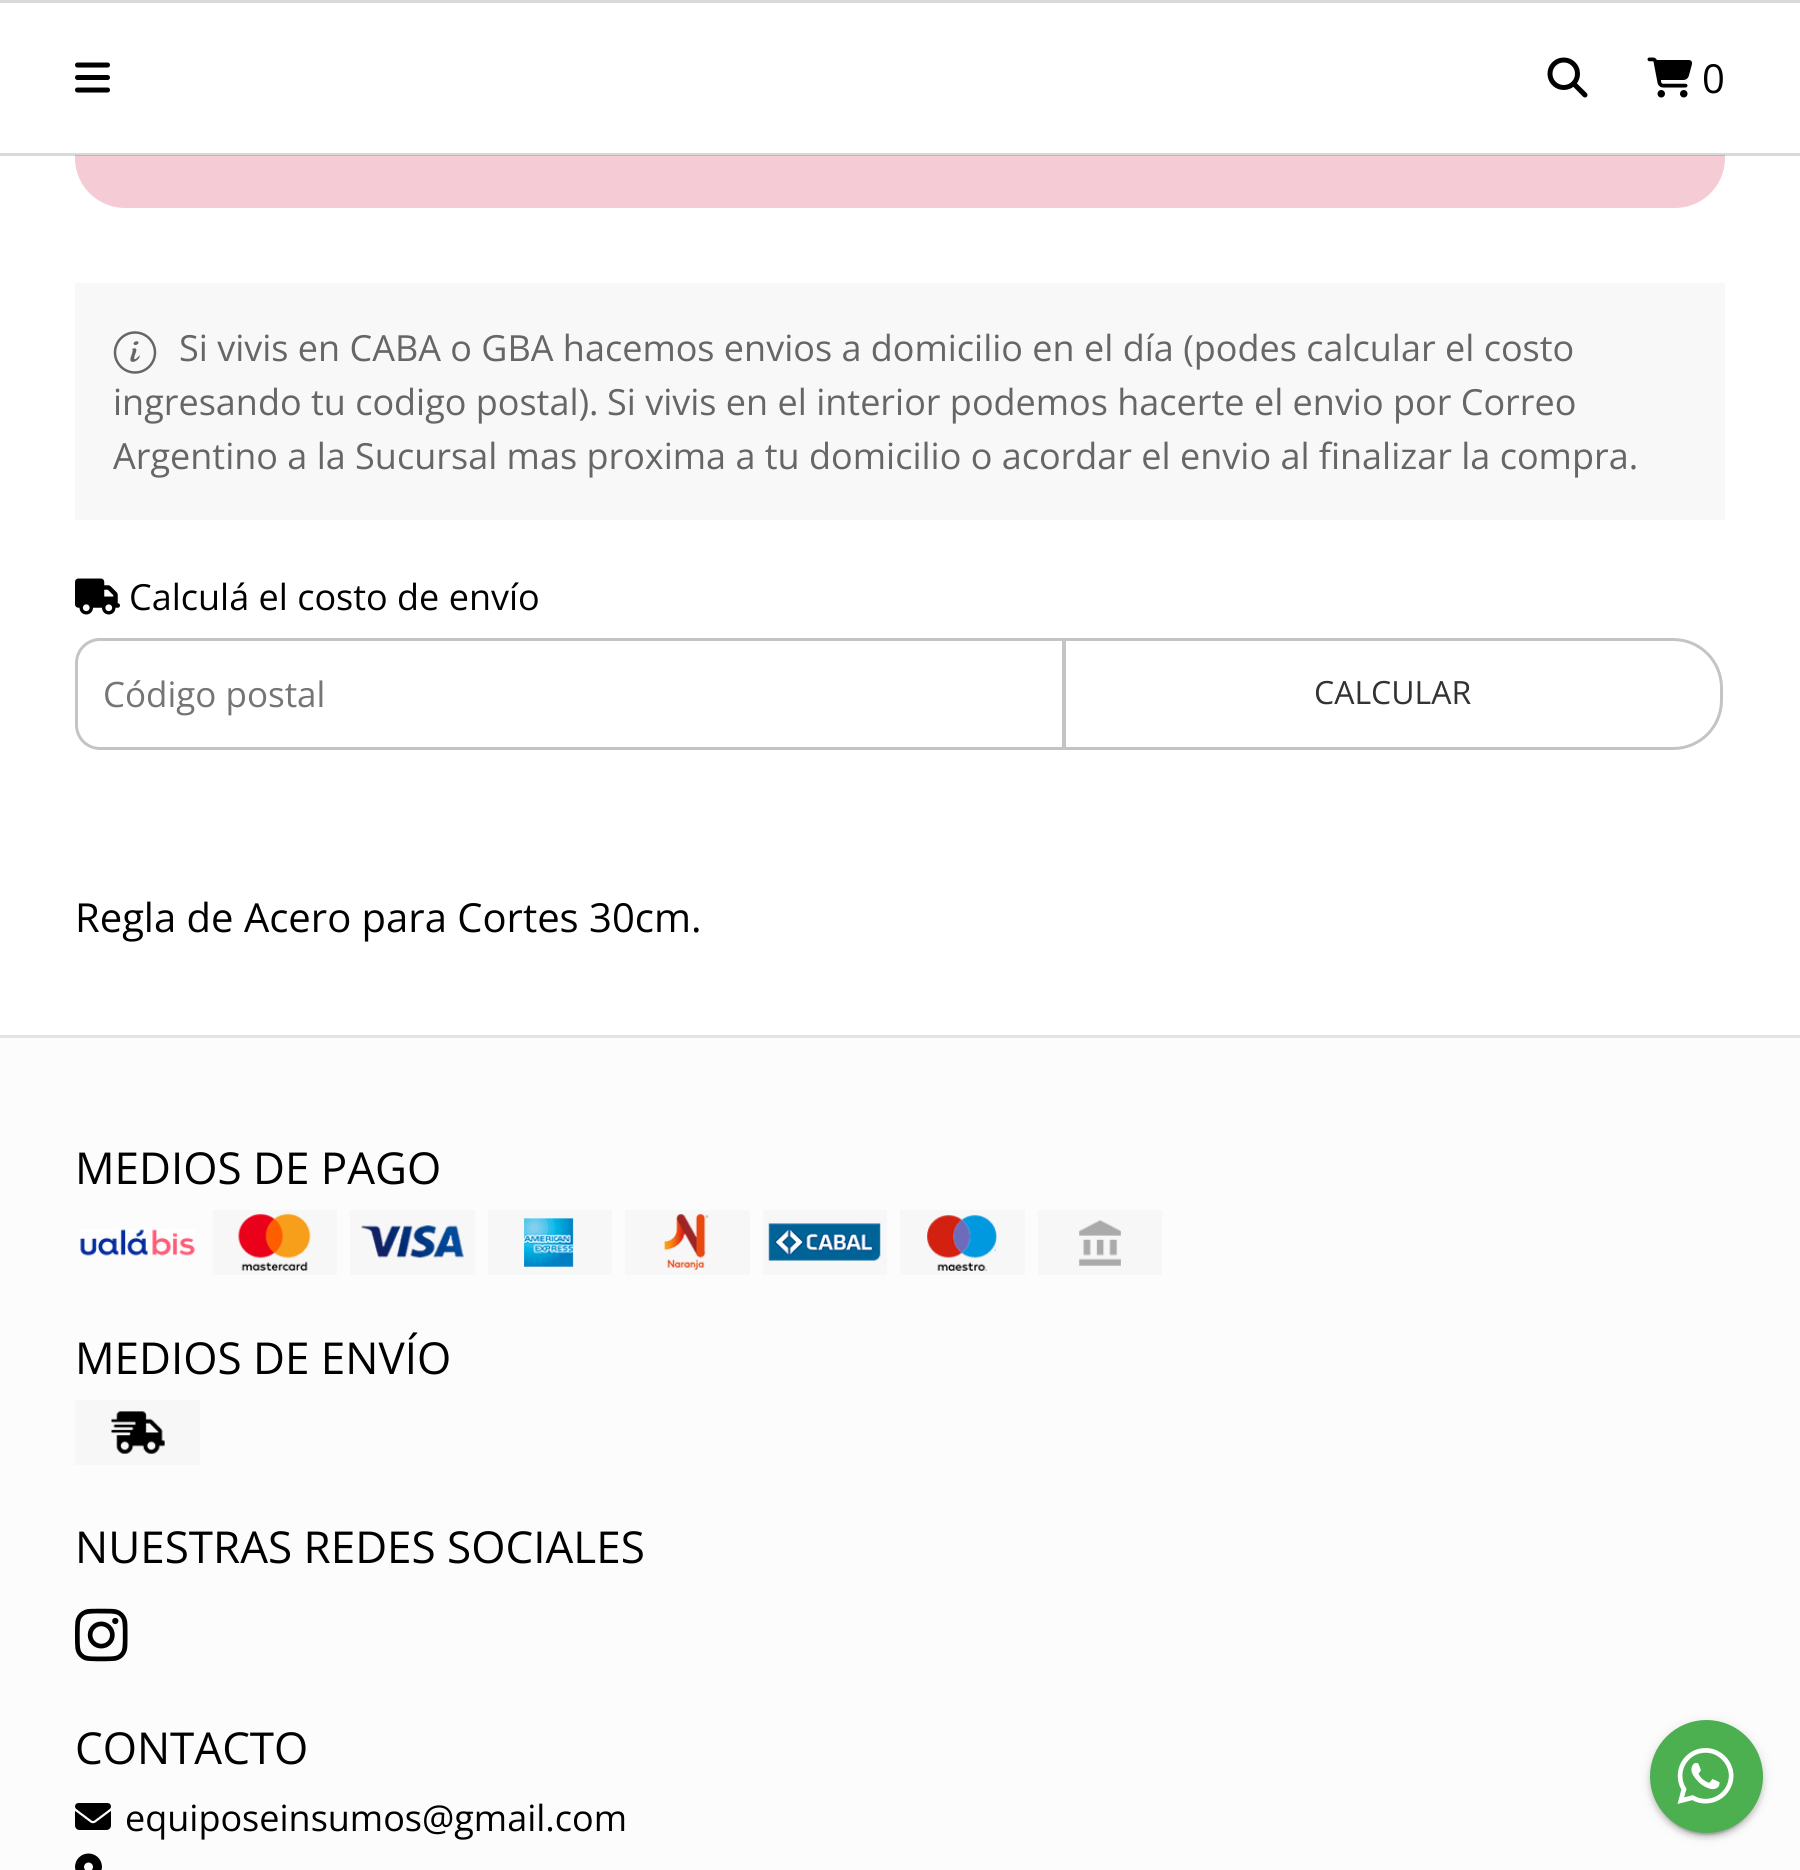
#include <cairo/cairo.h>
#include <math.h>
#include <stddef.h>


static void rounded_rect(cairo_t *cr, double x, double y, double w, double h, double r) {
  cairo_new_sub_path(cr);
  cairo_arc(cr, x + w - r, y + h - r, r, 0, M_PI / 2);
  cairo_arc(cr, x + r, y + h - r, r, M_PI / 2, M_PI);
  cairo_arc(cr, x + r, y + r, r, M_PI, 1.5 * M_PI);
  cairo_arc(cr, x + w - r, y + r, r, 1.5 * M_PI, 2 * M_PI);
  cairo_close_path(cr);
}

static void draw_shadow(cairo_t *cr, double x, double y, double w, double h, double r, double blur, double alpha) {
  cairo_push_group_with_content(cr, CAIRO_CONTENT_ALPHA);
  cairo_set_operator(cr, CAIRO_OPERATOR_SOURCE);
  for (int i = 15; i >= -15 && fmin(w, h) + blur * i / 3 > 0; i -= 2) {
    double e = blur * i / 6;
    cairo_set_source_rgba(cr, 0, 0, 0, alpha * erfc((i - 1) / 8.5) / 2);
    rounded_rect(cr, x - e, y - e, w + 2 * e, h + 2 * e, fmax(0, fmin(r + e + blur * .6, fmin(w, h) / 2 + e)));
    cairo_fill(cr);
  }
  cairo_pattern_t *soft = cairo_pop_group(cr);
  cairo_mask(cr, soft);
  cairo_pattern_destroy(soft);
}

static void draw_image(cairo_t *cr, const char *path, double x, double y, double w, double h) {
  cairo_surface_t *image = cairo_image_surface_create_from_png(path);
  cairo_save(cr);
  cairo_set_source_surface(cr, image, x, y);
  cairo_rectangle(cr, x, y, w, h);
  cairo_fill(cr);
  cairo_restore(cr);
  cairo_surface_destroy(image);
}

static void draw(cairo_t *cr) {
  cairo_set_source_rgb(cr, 1, 1, 1);
  cairo_paint(cr);
  cairo_set_source_rgb(cr, 245 / 255.0, 203 / 255.0, 213 / 255.0);
  rounded_rect(cr, 75, 95, 1650, 113, 50);
  cairo_fill(cr);
  cairo_set_source_rgb(cr, 1, 1, 1);
  cairo_rectangle(cr, 75, 95, 1650, 60);
  cairo_fill(cr);
  cairo_set_source_rgb(cr, 217 / 255.0, 217 / 255.0, 217 / 255.0);
  cairo_rectangle(cr, 0, 0, 1800, 3);
  cairo_fill(cr);
  cairo_set_source_rgba(cr, 0, 0, 0, 0.15);
  cairo_rectangle(cr, 0, 153, 1800, 3);
  cairo_fill(cr);
  draw_image(cr, "images/1.png", 75, 62, 35, 31);
  draw_image(cr, "images/2.png", 1547, 57, 41, 41);
  draw_image(cr, "images/3.png", 1647, 57, 46, 41);
  cairo_set_source_rgb(cr, 248 / 255.0, 248 / 255.0, 248 / 255.0);
  cairo_rectangle(cr, 75, 283, 1650, 237);
  cairo_fill(cr);
  draw_image(cr, "images/4.png", 113, 331, 44, 43);
  draw_image(cr, "images/5.png", 75, 578, 45, 37);
  cairo_new_path(cr);
  cairo_move_to(cr, 100, 639.5);
  cairo_line_to(cr, 1063.5, 639.5);
  cairo_line_to(cr, 1063.5, 748.5);
  cairo_line_to(cr, 100, 748.5);
  cairo_curve_to(cr, 87, 748.5, 76.5, 738, 76.5, 725);
  cairo_line_to(cr, 76.5, 663);
  cairo_curve_to(cr, 76.5, 650, 87, 639.5, 100, 639.5);
  cairo_close_path(cr);
  cairo_set_source_rgb(cr, 196 / 255.0, 196 / 255.0, 196 / 255.0);
  cairo_set_line_width(cr, 3);
  cairo_stroke(cr);
  cairo_set_source_rgb(cr, 1, 1, 1);
  cairo_new_path(cr);
  cairo_move_to(cr, 1064.5, 639.5);
  cairo_line_to(cr, 1673, 639.5);
  cairo_curve_to(cr, 1700, 639.5, 1721.5, 661, 1721.5, 688);
  cairo_line_to(cr, 1721.5, 700);
  cairo_curve_to(cr, 1721.5, 727, 1700, 748.5, 1673, 748.5);
  cairo_line_to(cr, 1064.5, 748.5);
  cairo_close_path(cr);
  cairo_fill_preserve(cr);
  cairo_set_source_rgb(cr, 196 / 255.0, 196 / 255.0, 196 / 255.0);
  cairo_stroke(cr);
  cairo_set_source_rgb(cr, 252 / 255.0, 252 / 255.0, 252 / 255.0);
  cairo_rectangle(cr, 0, 1038, 1800, 832);
  cairo_fill(cr);
  cairo_set_source_rgb(cr, 227 / 255.0, 227 / 255.0, 227 / 255.0);
  cairo_rectangle(cr, 0, 1035, 1800, 3);
  cairo_fill(cr);
  draw_image(cr, "images/6.png", 80, 1229, 115, 27);
  draw_image(cr, "images/7.png", 213, 1210, 124, 65);
  draw_image(cr, "images/8.png", 350, 1210, 125, 65);
  draw_image(cr, "images/9.png", 488, 1210, 124, 65);
  draw_image(cr, "images/10.png", 625, 1210, 125, 65);
  draw_image(cr, "images/11.png", 763, 1210, 124, 65);
  draw_image(cr, "images/12.png", 900, 1210, 125, 65);
  draw_image(cr, "images/13.png", 1038, 1210, 124, 65);
  draw_image(cr, "images/14.png", 75, 1400, 125, 65);
  draw_image(cr, "images/15.png", 75, 1608, 53, 54);
  draw_image(cr, "images/16.png", 75, 1803, 36, 27);
  draw_image(cr, "images/17.png", 75, 1853, 27, 17);
  cairo_set_source_rgb(cr, 0, 0, 0);
  draw_shadow(cr, 1655, 1733, 103, 102, 51, 1, 0.2);
  draw_shadow(cr, 1650, 1723, 113, 112, 56, 6, 0.12);
  draw_shadow(cr, 1650, 1725, 113, 113, 56.5, 2.5, 0.14);
  cairo_set_source_rgb(cr, 76 / 255.0, 175 / 255.0, 80 / 255.0);
  cairo_arc(cr, 1706.5, 1776.5, 56.5, 0, 2 * M_PI);
  cairo_fill(cr);
  draw_image(cr, "images/18.png", 1677, 1748, 57, 56);
  cairo_select_font_face(cr, "Open Sans", CAIRO_FONT_SLANT_NORMAL, CAIRO_FONT_WEIGHT_NORMAL);
  cairo_set_font_size(cr, 40);
  cairo_set_source_rgb(cr, 0, 0, 0);
  cairo_move_to(cr, 1702, 93);
  cairo_show_text(cr, "0");
  cairo_set_font_size(cr, 36);
  cairo_set_source_rgb(cr, 102 / 255.0, 102 / 255.0, 102 / 255.0);
  cairo_move_to(cr, 179, 361);
  cairo_show_text(cr, "Si vivis en CABA o GBA hacemos envios a domicilio en el día (podes calcular el costo");
  cairo_move_to(cr, 113, 415);
  cairo_show_text(cr, "ingresando tu codigo postal).");
  cairo_move_to(cr, 607, 415);
  cairo_show_text(cr, "Si vivis en el interior podemos hacerte el envio por Correo");
  cairo_move_to(cr, 113, 469);
  cairo_show_text(cr, "Argentino a la Sucursal mas proxima a tu domicilio o acordar el envio al finalizar la compra.");
  cairo_set_source_rgb(cr, 0, 0, 0);
  cairo_move_to(cr, 129, 610);
  cairo_show_text(cr, "Calculá el costo de envío");
  cairo_set_font_size(cr, 35);
  cairo_set_source_rgb(cr, 117 / 255.0, 117 / 255.0, 117 / 255.0);
  cairo_move_to(cr, 103, 707);
  cairo_show_text(cr, "Código postal");
  cairo_set_font_size(cr, 32);
  cairo_set_source_rgb(cr, 51 / 255.0, 51 / 255.0, 51 / 255.0);
  cairo_move_to(cr, 1314, 704);
  cairo_show_text(cr, "CALCULAR");
  cairo_set_font_size(cr, 40);
  cairo_set_source_rgb(cr, 0, 0, 0);
  cairo_move_to(cr, 75, 932);
  cairo_show_text(cr, "Regla de Acero para Cortes 30cm.");
  cairo_set_font_size(cr, 44);
  cairo_move_to(cr, 75, 1184);
  cairo_show_text(cr, "MEDIOS DE PAGO");
  cairo_move_to(cr, 75, 1374);
  cairo_show_text(cr, "MEDIOS DE ENVÍO");
  cairo_move_to(cr, 75, 1563);
  cairo_show_text(cr, "NUESTRAS REDES SOCIALES");
  cairo_move_to(cr, 75, 1764);
  cairo_show_text(cr, "CONTACTO");
  cairo_set_font_size(cr, 36);
  cairo_move_to(cr, 125, 1831);
  cairo_show_text(cr, "equiposeinsumos@gmail.com");
}

int main(void) {
  cairo_surface_t *surface = cairo_image_surface_create(CAIRO_FORMAT_RGB24, 1800, 1870);
  cairo_t *cr = cairo_create(surface);
  cairo_font_options_t *options = cairo_font_options_create();
  cairo_font_options_set_hint_metrics(options, CAIRO_HINT_METRICS_OFF);
  cairo_font_options_set_hint_style(options, CAIRO_HINT_STYLE_NONE);
  cairo_set_font_options(cr, options);
  cairo_set_miter_limit(cr, 4);
  draw(cr);
  cairo_surface_write_to_png(surface, "out.png");
  cairo_font_options_destroy(options);
  cairo_destroy(cr);
  cairo_surface_destroy(surface);
  return 0;
}
